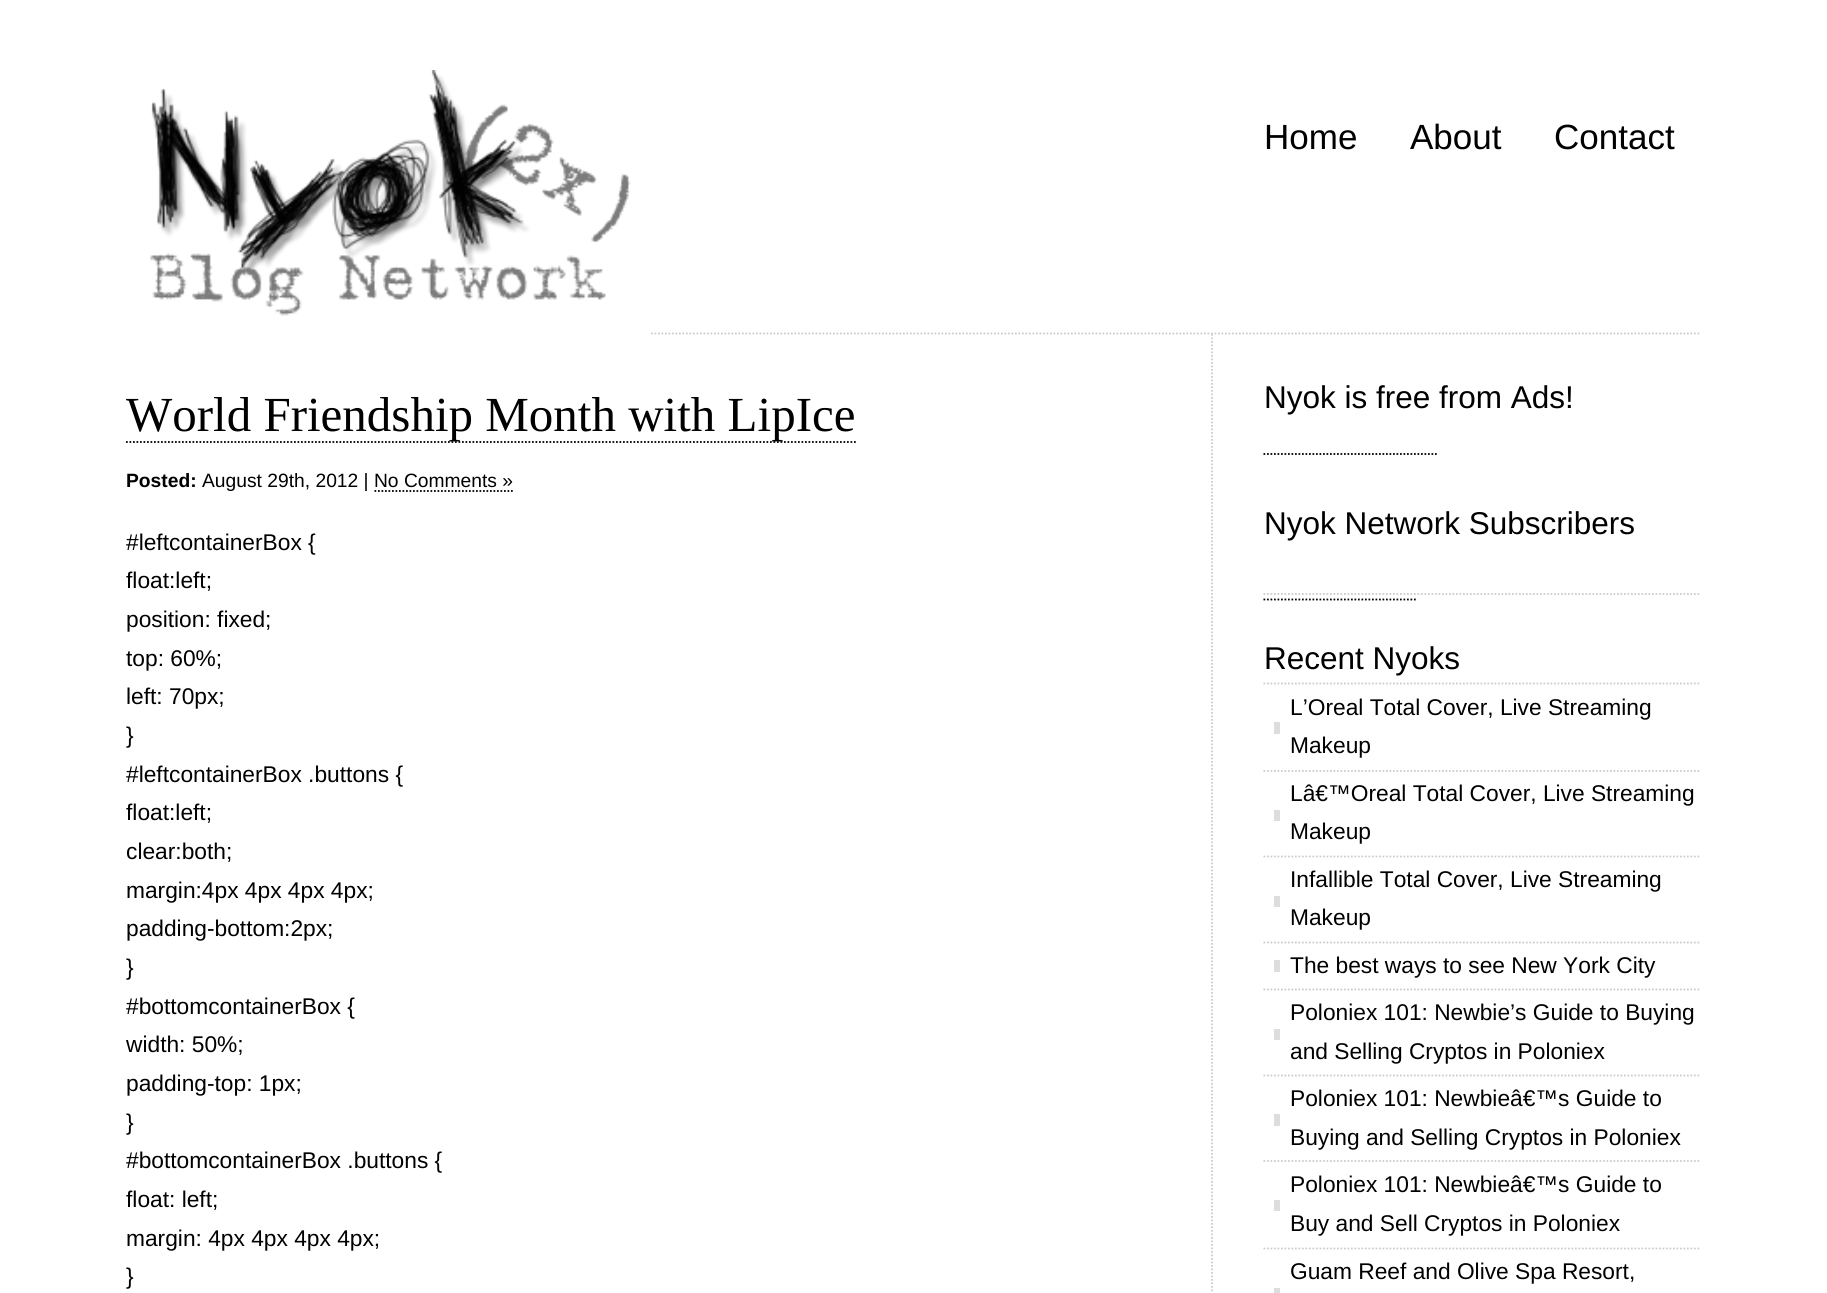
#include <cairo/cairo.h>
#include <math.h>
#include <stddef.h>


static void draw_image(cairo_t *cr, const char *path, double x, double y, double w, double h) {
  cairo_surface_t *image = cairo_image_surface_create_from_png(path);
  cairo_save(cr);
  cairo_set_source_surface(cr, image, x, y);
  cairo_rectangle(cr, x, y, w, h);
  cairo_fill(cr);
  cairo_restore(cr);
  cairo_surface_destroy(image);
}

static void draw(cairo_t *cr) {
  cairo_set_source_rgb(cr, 1, 1, 1);
  cairo_paint(cr);
  cairo_new_path(cr);
  cairo_move_to(cr, 126, 333.5);
  cairo_line_to(cr, 1701, 333.5);
  cairo_set_source_rgb(cr, 204 / 255.0, 204 / 255.0, 204 / 255.0);
  cairo_set_line_width(cr, 1.8);
  cairo_set_dash(cr, (double[]){1.75, 1.75}, 2, 0);
  cairo_stroke(cr);
  draw_image(cr, "images/1.png", 150, 70, 481, 246);
  cairo_set_source_rgb(cr, 1, 1, 1);
  cairo_rectangle(cr, 126, 332, 524, 3);
  cairo_fill(cr);
  cairo_new_path(cr);
  cairo_move_to(cr, 1212, 334);
  cairo_line_to(cr, 1212, 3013.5);
  cairo_set_source_rgb(cr, 204 / 255.0, 204 / 255.0, 204 / 255.0);
  cairo_stroke(cr);
  cairo_new_path(cr);
  cairo_move_to(cr, 126, 442);
  cairo_line_to(cr, 856, 442);
  cairo_set_source_rgb(cr, 0, 0, 0);
  cairo_stroke(cr);
  cairo_new_path(cr);
  cairo_move_to(cr, 374.5, 491);
  cairo_line_to(cr, 513, 491);
  cairo_stroke(cr);
  cairo_new_path(cr);
  cairo_move_to(cr, 1263.5, 454);
  cairo_line_to(cr, 1438.5, 454);
  cairo_stroke(cr);
  cairo_new_path(cr);
  cairo_move_to(cr, 1263.5, 594);
  cairo_line_to(cr, 1701, 594);
  cairo_set_source_rgb(cr, 204 / 255.0, 204 / 255.0, 204 / 255.0);
  cairo_stroke(cr);
  cairo_new_path(cr);
  cairo_move_to(cr, 1263.5, 599.5);
  cairo_line_to(cr, 1417.5, 599.5);
  cairo_set_source_rgb(cr, 0, 0, 0);
  cairo_stroke(cr);
  cairo_new_path(cr);
  cairo_move_to(cr, 1263.5, 683.5);
  cairo_line_to(cr, 1701, 683.5);
  cairo_set_source_rgb(cr, 204 / 255.0, 204 / 255.0, 204 / 255.0);
  cairo_stroke(cr);
  cairo_set_source_rgb(cr, 221 / 255.0, 221 / 255.0, 221 / 255.0);
  cairo_rectangle(cr, 1274, 722, 6, 12);
  cairo_fill(cr);
  cairo_new_path(cr);
  cairo_move_to(cr, 1263.5, 771);
  cairo_line_to(cr, 1701, 771);
  cairo_set_source_rgb(cr, 204 / 255.0, 204 / 255.0, 204 / 255.0);
  cairo_stroke(cr);
  cairo_set_source_rgb(cr, 221 / 255.0, 221 / 255.0, 221 / 255.0);
  cairo_rectangle(cr, 1274, 810, 6, 11);
  cairo_fill(cr);
  cairo_new_path(cr);
  cairo_move_to(cr, 1263.5, 856.5);
  cairo_line_to(cr, 1701, 856.5);
  cairo_set_source_rgb(cr, 204 / 255.0, 204 / 255.0, 204 / 255.0);
  cairo_stroke(cr);
  cairo_set_source_rgb(cr, 221 / 255.0, 221 / 255.0, 221 / 255.0);
  cairo_rectangle(cr, 1274, 896, 6, 11);
  cairo_fill(cr);
  cairo_new_path(cr);
  cairo_move_to(cr, 1263.5, 942.5);
  cairo_line_to(cr, 1701, 942.5);
  cairo_set_source_rgb(cr, 204 / 255.0, 204 / 255.0, 204 / 255.0);
  cairo_stroke(cr);
  cairo_set_source_rgb(cr, 221 / 255.0, 221 / 255.0, 221 / 255.0);
  cairo_rectangle(cr, 1274, 960, 6, 12);
  cairo_fill(cr);
  cairo_new_path(cr);
  cairo_move_to(cr, 1263.5, 989.5);
  cairo_line_to(cr, 1701, 989.5);
  cairo_set_source_rgb(cr, 204 / 255.0, 204 / 255.0, 204 / 255.0);
  cairo_stroke(cr);
  cairo_set_source_rgb(cr, 221 / 255.0, 221 / 255.0, 221 / 255.0);
  cairo_rectangle(cr, 1274, 1029, 6, 11);
  cairo_fill(cr);
  cairo_new_path(cr);
  cairo_move_to(cr, 1263.5, 1075.5);
  cairo_line_to(cr, 1701, 1075.5);
  cairo_set_source_rgb(cr, 204 / 255.0, 204 / 255.0, 204 / 255.0);
  cairo_stroke(cr);
  cairo_set_source_rgb(cr, 221 / 255.0, 221 / 255.0, 221 / 255.0);
  cairo_rectangle(cr, 1274, 1114, 6, 12);
  cairo_fill(cr);
  cairo_new_path(cr);
  cairo_move_to(cr, 1263.5, 1161);
  cairo_line_to(cr, 1701, 1161);
  cairo_set_source_rgb(cr, 204 / 255.0, 204 / 255.0, 204 / 255.0);
  cairo_stroke(cr);
  cairo_set_source_rgb(cr, 221 / 255.0, 221 / 255.0, 221 / 255.0);
  cairo_rectangle(cr, 1274, 1200, 6, 11);
  cairo_fill(cr);
  cairo_new_path(cr);
  cairo_move_to(cr, 1263.5, 1248.5);
  cairo_line_to(cr, 1701, 1248.5);
  cairo_set_source_rgb(cr, 204 / 255.0, 204 / 255.0, 204 / 255.0);
  cairo_stroke(cr);
  cairo_set_source_rgb(cr, 221 / 255.0, 221 / 255.0, 221 / 255.0);
  cairo_rectangle(cr, 1274, 1288, 6, 5);
  cairo_fill(cr);
  cairo_select_font_face(cr, "Liberation Sans", CAIRO_FONT_SLANT_NORMAL, CAIRO_FONT_WEIGHT_NORMAL);
  cairo_set_font_size(cr, 35);
  cairo_set_source_rgb(cr, 0, 0, 0);
  cairo_move_to(cr, 1264, 149);
  cairo_show_text(cr, "Home");
  cairo_move_to(cr, 1410, 149);
  cairo_show_text(cr, "About");
  cairo_move_to(cr, 1554, 149);
  cairo_show_text(cr, "Contact");
  cairo_select_font_face(cr, "Liberation Serif", CAIRO_FONT_SLANT_NORMAL, CAIRO_FONT_WEIGHT_NORMAL);
  cairo_set_font_size(cr, 49);
  cairo_move_to(cr, 126, 431);
  cairo_show_text(cr, "World Friendship Month with LipIce");
  cairo_select_font_face(cr, "Liberation Sans", CAIRO_FONT_SLANT_NORMAL, CAIRO_FONT_WEIGHT_BOLD);
  cairo_set_font_size(cr, 19.25);
  cairo_move_to(cr, 126, 487);
  cairo_show_text(cr, "Posted:");
  cairo_select_font_face(cr, "Liberation Sans", CAIRO_FONT_SLANT_NORMAL, CAIRO_FONT_WEIGHT_NORMAL);
  cairo_move_to(cr, 202, 487);
  cairo_show_text(cr, "August 29th, 2012 | No Comments »");
  cairo_set_font_size(cr, 22.75);
  cairo_move_to(cr, 126, 550);
  cairo_show_text(cr, "#leftcontainerBox {");
  cairo_move_to(cr, 126, 588);
  cairo_show_text(cr, "float:left;");
  cairo_move_to(cr, 126, 627);
  cairo_show_text(cr, "position: fixed;");
  cairo_move_to(cr, 126, 666);
  cairo_show_text(cr, "top: 60%;");
  cairo_move_to(cr, 126, 704);
  cairo_show_text(cr, "left: 70px;");
  cairo_move_to(cr, 126, 743);
  cairo_show_text(cr, "}");
  cairo_move_to(cr, 126, 782);
  cairo_show_text(cr, "#leftcontainerBox .buttons {");
  cairo_move_to(cr, 126, 820);
  cairo_show_text(cr, "float:left;");
  cairo_move_to(cr, 126, 859);
  cairo_show_text(cr, "clear:both;");
  cairo_move_to(cr, 126, 898);
  cairo_show_text(cr, "margin:4px 4px 4px 4px;");
  cairo_move_to(cr, 126, 936);
  cairo_show_text(cr, "padding-bottom:2px;");
  cairo_move_to(cr, 126, 975);
  cairo_show_text(cr, "}");
  cairo_move_to(cr, 126, 1014);
  cairo_show_text(cr, "#bottomcontainerBox {");
  cairo_move_to(cr, 126, 1052);
  cairo_show_text(cr, "width: 50%;");
  cairo_move_to(cr, 126, 1091);
  cairo_show_text(cr, "padding-top: 1px;");
  cairo_move_to(cr, 126, 1130);
  cairo_show_text(cr, "}");
  cairo_move_to(cr, 126, 1168);
  cairo_show_text(cr, "#bottomcontainerBox .buttons {");
  cairo_move_to(cr, 126, 1207);
  cairo_show_text(cr, "float: left;");
  cairo_move_to(cr, 126, 1246);
  cairo_show_text(cr, "margin: 4px 4px 4px 4px;");
  cairo_move_to(cr, 126, 1284);
  cairo_show_text(cr, "}");
  cairo_set_font_size(cr, 31.5);
  cairo_move_to(cr, 1264, 408);
  cairo_show_text(cr, "Nyok is free from Ads!");
  cairo_move_to(cr, 1264, 534);
  cairo_show_text(cr, "Nyok Network Subscribers");
  cairo_move_to(cr, 1264, 669);
  cairo_show_text(cr, "Recent Nyoks");
  cairo_set_font_size(cr, 22.75);
  cairo_move_to(cr, 1290, 715);
  cairo_show_text(cr, "L’Oreal Total Cover, Live Streaming");
  cairo_move_to(cr, 1290, 753);
  cairo_show_text(cr, "Makeup");
  cairo_move_to(cr, 1290, 801);
  cairo_show_text(cr, "Lâ€™Oreal Total Cover, Live Streaming");
  cairo_move_to(cr, 1290, 839);
  cairo_show_text(cr, "Makeup");
  cairo_move_to(cr, 1290, 887);
  cairo_show_text(cr, "Infallible Total Cover, Live Streaming");
  cairo_move_to(cr, 1290, 925);
  cairo_show_text(cr, "Makeup");
  cairo_move_to(cr, 1290, 973);
  cairo_show_text(cr, "The best ways to see New York City");
  cairo_move_to(cr, 1290, 1020);
  cairo_show_text(cr, "Poloniex 101: Newbie’s Guide to Buying");
  cairo_move_to(cr, 1290, 1059);
  cairo_show_text(cr, "and Selling Cryptos in Poloniex");
  cairo_move_to(cr, 1290, 1106);
  cairo_show_text(cr, "Poloniex 101: Newbieâ€™s Guide to");
  cairo_move_to(cr, 1290, 1145);
  cairo_show_text(cr, "Buying and Selling Cryptos in Poloniex");
  cairo_move_to(cr, 1290, 1192);
  cairo_show_text(cr, "Poloniex 101: Newbieâ€™s Guide to");
  cairo_move_to(cr, 1290, 1231);
  cairo_show_text(cr, "Buy and Sell Cryptos in Poloniex");
  cairo_move_to(cr, 1290, 1279);
  cairo_show_text(cr, "Guam Reef and Olive Spa Resort,");
}

int main(void) {
  cairo_surface_t *surface = cairo_image_surface_create(CAIRO_FORMAT_RGB24, 1827, 1293);
  cairo_t *cr = cairo_create(surface);
  cairo_font_options_t *options = cairo_font_options_create();
  cairo_font_options_set_hint_metrics(options, CAIRO_HINT_METRICS_OFF);
  cairo_font_options_set_hint_style(options, CAIRO_HINT_STYLE_NONE);
  cairo_set_font_options(cr, options);
  cairo_set_miter_limit(cr, 4);
  draw(cr);
  cairo_surface_write_to_png(surface, "out.png");
  cairo_font_options_destroy(options);
  cairo_destroy(cr);
  cairo_surface_destroy(surface);
  return 0;
}
